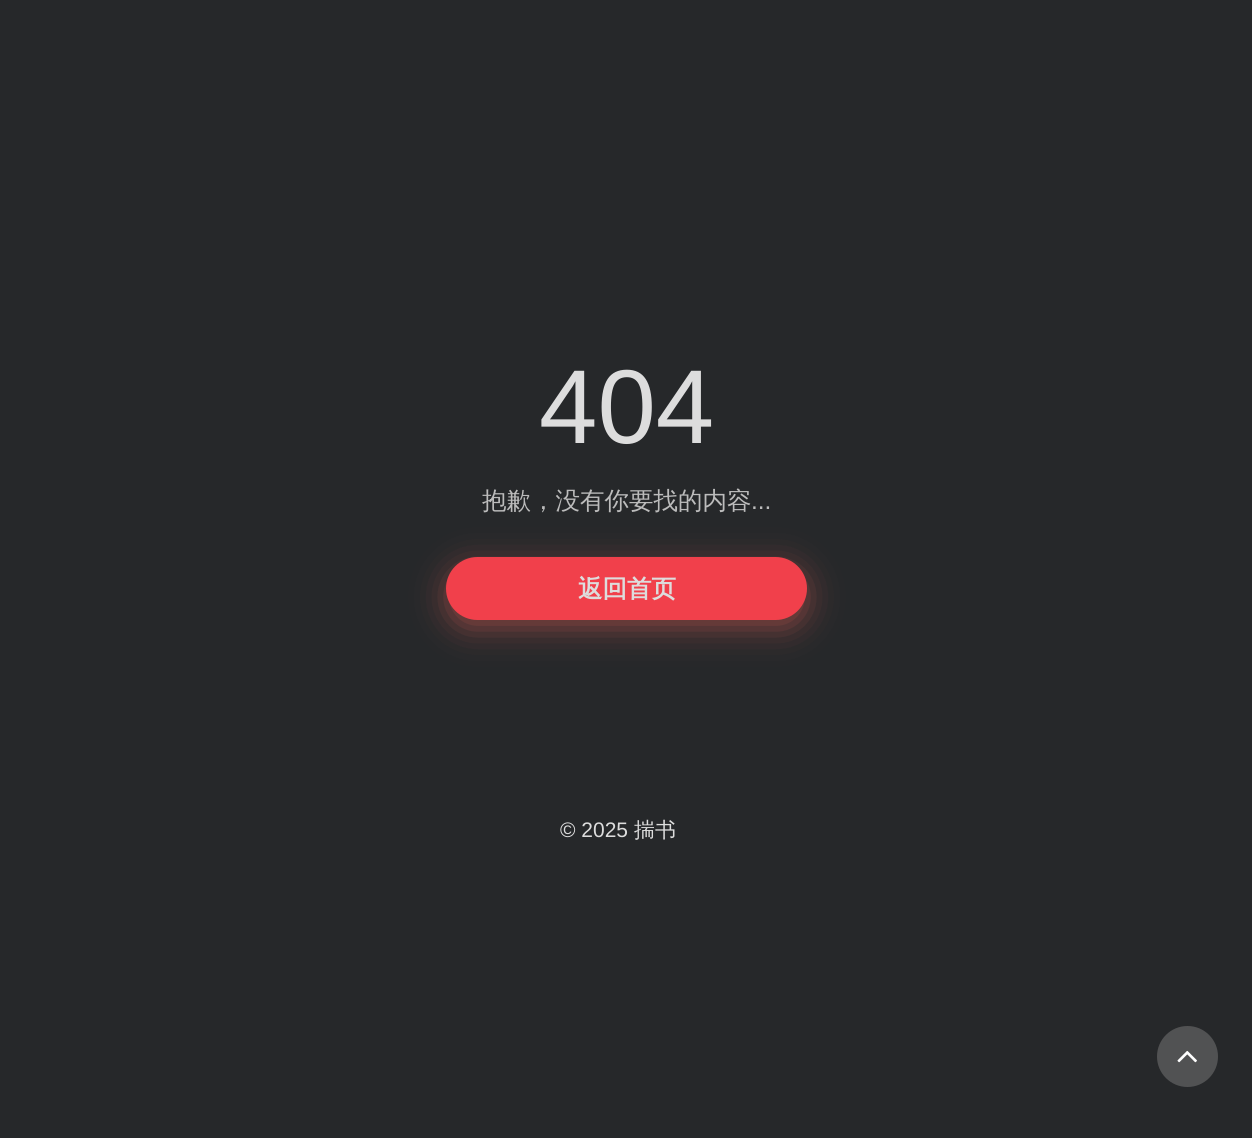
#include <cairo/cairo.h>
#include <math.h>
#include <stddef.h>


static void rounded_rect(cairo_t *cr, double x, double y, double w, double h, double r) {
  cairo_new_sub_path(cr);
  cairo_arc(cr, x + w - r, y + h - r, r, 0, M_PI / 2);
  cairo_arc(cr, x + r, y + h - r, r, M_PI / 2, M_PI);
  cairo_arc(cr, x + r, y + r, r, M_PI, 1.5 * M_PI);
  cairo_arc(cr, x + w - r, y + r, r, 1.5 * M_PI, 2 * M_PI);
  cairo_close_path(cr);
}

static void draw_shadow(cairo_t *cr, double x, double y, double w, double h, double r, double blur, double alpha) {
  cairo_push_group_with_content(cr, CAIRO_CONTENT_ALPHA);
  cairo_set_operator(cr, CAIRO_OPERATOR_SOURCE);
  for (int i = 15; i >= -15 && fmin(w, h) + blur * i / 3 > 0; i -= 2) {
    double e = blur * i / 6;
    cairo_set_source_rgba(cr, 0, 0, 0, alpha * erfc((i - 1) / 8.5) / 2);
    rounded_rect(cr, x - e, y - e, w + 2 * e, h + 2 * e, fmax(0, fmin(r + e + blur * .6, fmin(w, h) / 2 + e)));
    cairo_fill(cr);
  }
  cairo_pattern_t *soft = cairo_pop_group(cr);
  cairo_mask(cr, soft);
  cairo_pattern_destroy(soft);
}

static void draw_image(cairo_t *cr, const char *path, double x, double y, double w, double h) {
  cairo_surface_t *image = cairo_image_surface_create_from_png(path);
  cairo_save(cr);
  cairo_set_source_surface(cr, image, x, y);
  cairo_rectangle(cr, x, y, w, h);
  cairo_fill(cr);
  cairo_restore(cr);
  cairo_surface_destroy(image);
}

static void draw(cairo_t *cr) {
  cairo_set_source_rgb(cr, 38 / 255.0, 40 / 255.0, 42 / 255.0);
  cairo_paint(cr);
  cairo_set_source_rgb(cr, 249 / 255.0, 100 / 255.0, 90 / 255.0);
  draw_shadow(cr, 452, 571, 350, 52, 26, 17.5, 0.6);
  cairo_set_source_rgb(cr, 241 / 255.0, 64 / 255.0, 75 / 255.0);
  rounded_rect(cr, 446, 557, 361, 63, 31.5);
  cairo_fill(cr);
  cairo_set_source_rgb(cr, 81 / 255.0, 82 / 255.0, 83 / 255.0);
  cairo_arc(cr, 1187.5, 1056.5, 30.5, 0, 2 * M_PI);
  cairo_fill(cr);
  draw_image(cr, "images/1.png", 1177, 1050, 20, 13);
  cairo_select_font_face(cr, "Liberation Sans", CAIRO_FONT_SLANT_NORMAL, CAIRO_FONT_WEIGHT_NORMAL);
  cairo_set_font_size(cr, 105);
  cairo_set_source_rgb(cr, 221 / 255.0, 221 / 255.0, 221 / 255.0);
  cairo_move_to(cr, 539, 443);
  cairo_show_text(cr, "404");
  cairo_select_font_face(cr, "WenQuanYi Zen Hei Medium", CAIRO_FONT_SLANT_NORMAL, CAIRO_FONT_WEIGHT_NORMAL);
  cairo_set_font_size(cr, 24.5);
  cairo_set_source_rgb(cr, 188 / 255.0, 188 / 255.0, 188 / 255.0);
  cairo_move_to(cr, 482, 509);
  cairo_show_text(cr, "抱歉，没有你要找的内容");
  cairo_select_font_face(cr, "Liberation Sans", CAIRO_FONT_SLANT_NORMAL, CAIRO_FONT_WEIGHT_NORMAL);
  cairo_move_to(cr, 751, 509);
  cairo_show_text(cr, "...");
  cairo_select_font_face(cr, "WenQuanYi Zen Hei", CAIRO_FONT_SLANT_NORMAL, CAIRO_FONT_WEIGHT_BOLD);
  cairo_set_source_rgb(cr, 221 / 255.0, 221 / 255.0, 221 / 255.0);
  cairo_move_to(cr, 578, 597);
  cairo_show_text(cr, "返回首页");
  cairo_select_font_face(cr, "Liberation Sans", CAIRO_FONT_SLANT_NORMAL, CAIRO_FONT_WEIGHT_NORMAL);
  cairo_set_font_size(cr, 21);
  cairo_move_to(cr, 560, 837);
  cairo_show_text(cr, "© 2025");
  cairo_select_font_face(cr, "WenQuanYi Zen Hei Medium", CAIRO_FONT_SLANT_NORMAL, CAIRO_FONT_WEIGHT_NORMAL);
  cairo_move_to(cr, 634, 837);
  cairo_show_text(cr, "揣书");
}

int main(void) {
  cairo_surface_t *surface = cairo_image_surface_create(CAIRO_FORMAT_RGB24, 1252, 1138);
  cairo_t *cr = cairo_create(surface);
  cairo_font_options_t *options = cairo_font_options_create();
  cairo_font_options_set_hint_metrics(options, CAIRO_HINT_METRICS_OFF);
  cairo_font_options_set_hint_style(options, CAIRO_HINT_STYLE_NONE);
  cairo_set_font_options(cr, options);
  cairo_set_miter_limit(cr, 4);
  draw(cr);
  cairo_surface_write_to_png(surface, "out.png");
  cairo_font_options_destroy(options);
  cairo_destroy(cr);
  cairo_surface_destroy(surface);
  return 0;
}
